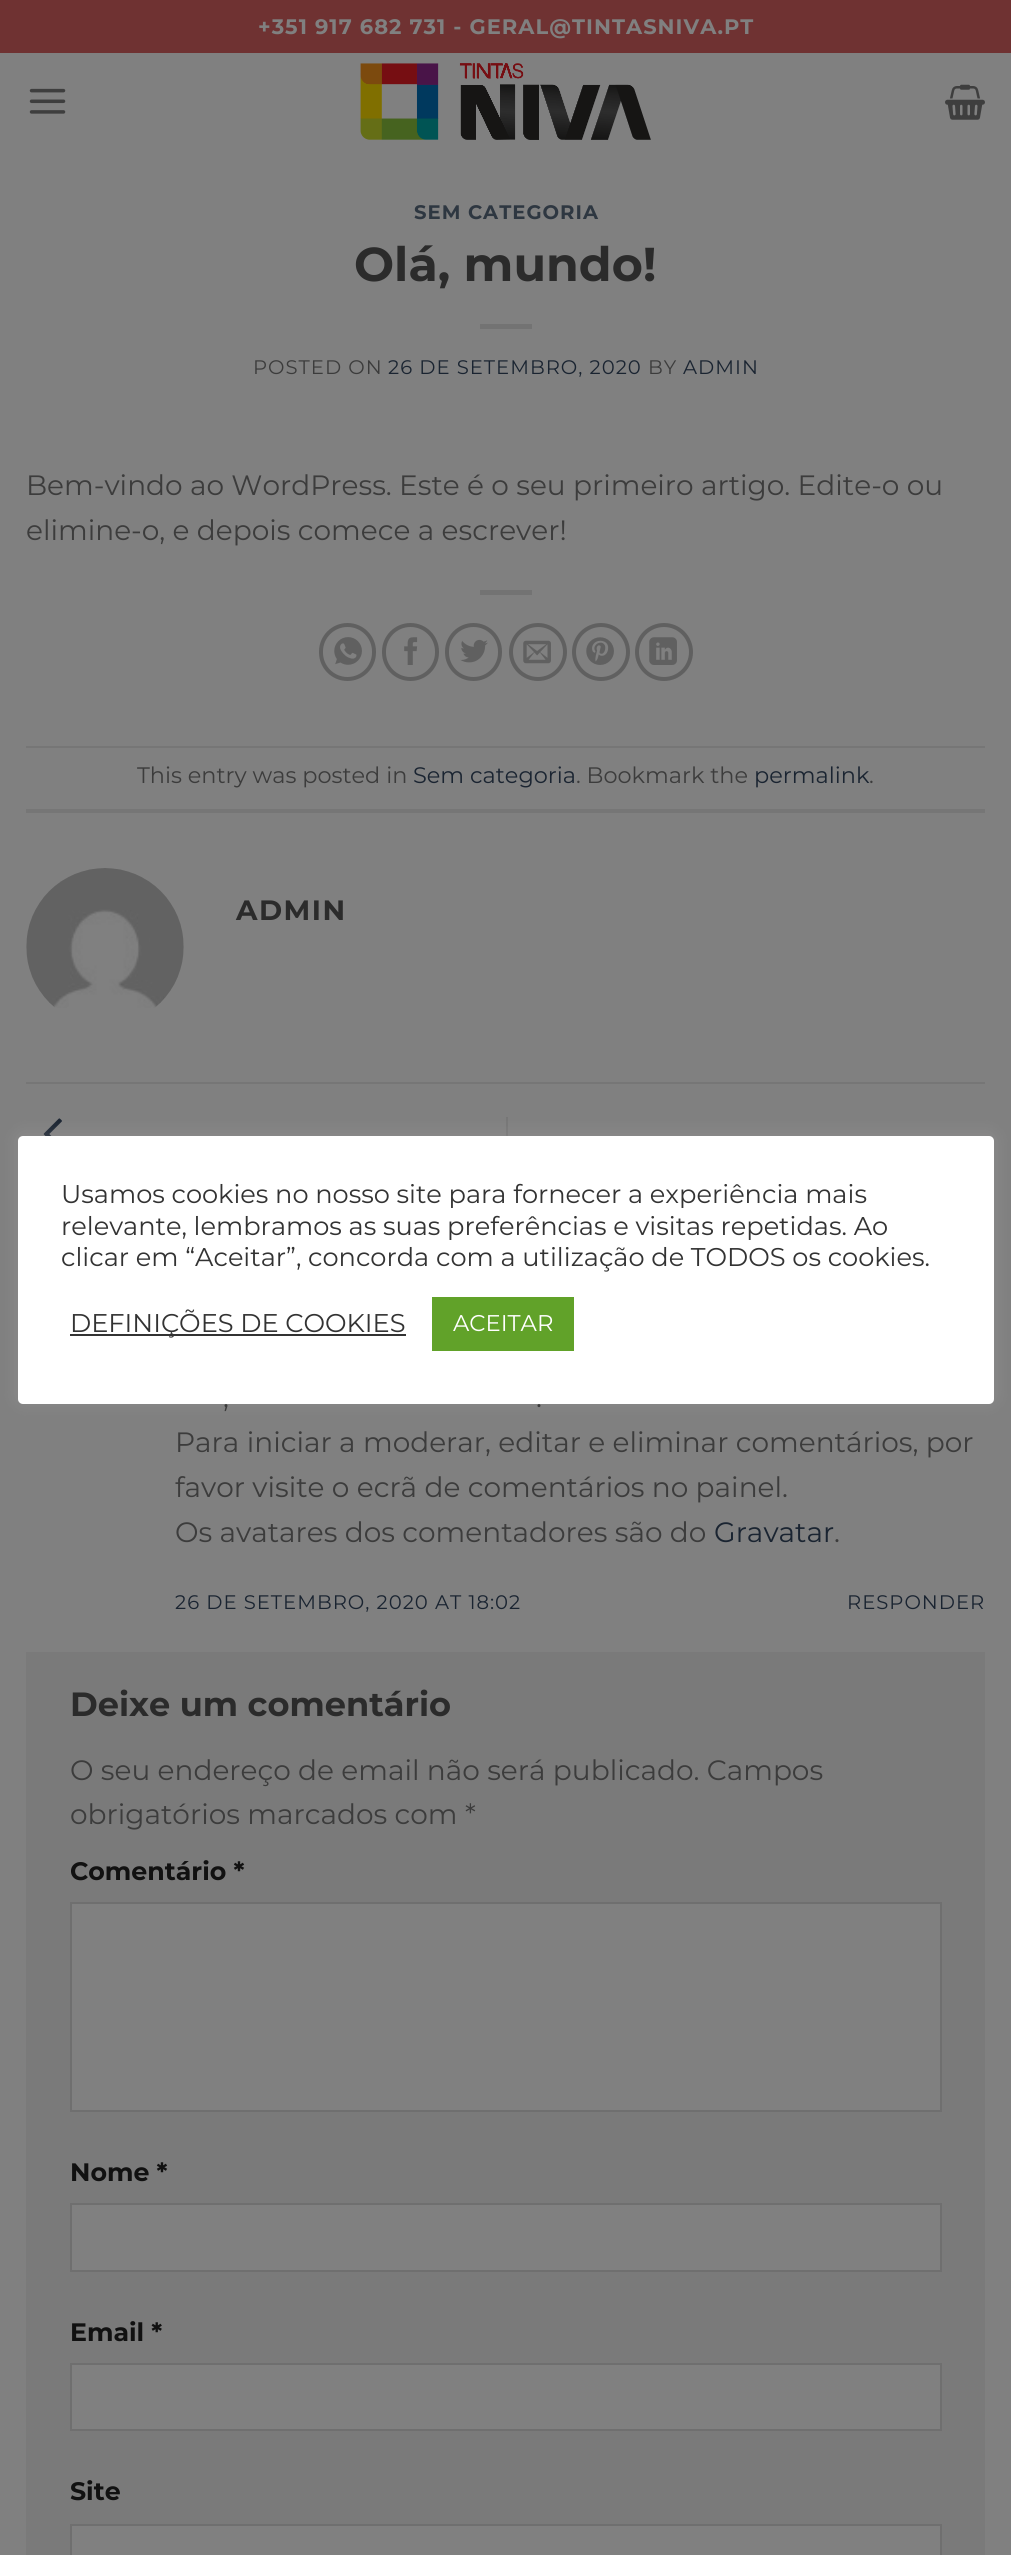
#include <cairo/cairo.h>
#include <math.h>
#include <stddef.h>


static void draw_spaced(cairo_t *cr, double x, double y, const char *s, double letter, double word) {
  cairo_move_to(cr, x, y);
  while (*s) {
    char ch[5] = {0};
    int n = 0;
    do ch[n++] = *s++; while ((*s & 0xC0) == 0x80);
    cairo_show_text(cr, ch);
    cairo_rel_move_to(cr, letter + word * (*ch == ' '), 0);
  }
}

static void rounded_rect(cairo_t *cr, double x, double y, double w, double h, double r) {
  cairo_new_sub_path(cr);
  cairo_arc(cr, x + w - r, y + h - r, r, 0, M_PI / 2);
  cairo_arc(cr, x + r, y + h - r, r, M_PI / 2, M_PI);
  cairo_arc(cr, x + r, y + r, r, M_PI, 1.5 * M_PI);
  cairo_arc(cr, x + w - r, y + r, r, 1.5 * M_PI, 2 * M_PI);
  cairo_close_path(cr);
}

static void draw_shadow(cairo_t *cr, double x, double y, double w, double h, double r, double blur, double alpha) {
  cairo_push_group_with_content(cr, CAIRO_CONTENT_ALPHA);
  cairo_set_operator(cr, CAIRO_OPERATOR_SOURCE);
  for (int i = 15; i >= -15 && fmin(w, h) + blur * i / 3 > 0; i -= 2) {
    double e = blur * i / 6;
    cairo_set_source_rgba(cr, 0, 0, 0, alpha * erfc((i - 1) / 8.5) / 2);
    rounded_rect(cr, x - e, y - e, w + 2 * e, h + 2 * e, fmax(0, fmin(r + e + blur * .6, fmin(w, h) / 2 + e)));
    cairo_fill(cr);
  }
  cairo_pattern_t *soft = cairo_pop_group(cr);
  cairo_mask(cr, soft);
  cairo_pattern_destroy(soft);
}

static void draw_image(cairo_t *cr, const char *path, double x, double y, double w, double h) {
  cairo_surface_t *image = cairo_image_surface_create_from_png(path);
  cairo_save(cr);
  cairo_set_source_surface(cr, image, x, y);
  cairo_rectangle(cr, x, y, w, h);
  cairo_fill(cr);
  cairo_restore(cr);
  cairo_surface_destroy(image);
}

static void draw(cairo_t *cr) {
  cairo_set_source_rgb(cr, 128 / 255.0, 128 / 255.0, 128 / 255.0);
  cairo_paint(cr);
  cairo_set_source_rgb(cr, 111 / 255.0, 50 / 255.0, 50 / 255.0);
  cairo_rectangle(cr, 0, 0, 1011, 53);
  cairo_fill(cr);
  draw_image(cr, "images/1.png", 29, 88, 37, 26);
  draw_image(cr, "images/2.png", 360, 63, 291, 77);
  draw_image(cr, "images/3.png", 945, 84, 40, 36);
  cairo_set_source_rgb(cr, 115 / 255.0, 115 / 255.0, 115 / 255.0);
  cairo_rectangle(cr, 480, 324, 52, 5);
  cairo_fill(cr);
  cairo_rectangle(cr, 480, 590, 52, 5);
  cairo_fill(cr);
  rounded_rect(cr, 321, 625, 53, 54, 26.5);
  cairo_set_source_rgb(cr, 96 / 255.0, 96 / 255.0, 96 / 255.0);
  cairo_set_line_width(cr, 4);
  cairo_stroke(cr);
  draw_image(cr, "images/4.png", 334, 637, 28, 28);
  rounded_rect(cr, 384, 625, 53, 54, 26.5);
  cairo_stroke(cr);
  draw_image(cr, "images/5.png", 404, 637, 14, 28);
  rounded_rect(cr, 447, 625, 53, 54, 26.5);
  cairo_stroke(cr);
  draw_image(cr, "images/6.png", 460, 639, 28, 24);
  cairo_arc(cr, 538, 652, 27, 0, 2 * M_PI);
  cairo_stroke(cr);
  draw_image(cr, "images/7.png", 523, 640, 28, 24);
  cairo_arc(cr, 601, 652, 27, 0, 2 * M_PI);
  cairo_stroke(cr);
  draw_image(cr, "images/8.png", 586, 637, 28, 28);
  cairo_arc(cr, 664, 652, 27, 0, 2 * M_PI);
  cairo_stroke(cr);
  draw_image(cr, "images/9.png", 649, 637, 28, 28);
  cairo_set_source_rgb(cr, 118 / 255.0, 118 / 255.0, 118 / 255.0);
  cairo_rectangle(cr, 26, 746, 959, 2);
  cairo_fill(cr);
  cairo_rectangle(cr, 26, 809, 959, 4);
  cairo_fill(cr);
  draw_image(cr, "images/10.png", 26, 868, 158, 140);
  cairo_rectangle(cr, 26, 1082, 959, 2);
  cairo_fill(cr);
  draw_image(cr, "images/11.png", 43, 1118, 19, 18);
  cairo_rectangle(cr, 506, 1117, 2, 19);
  cairo_fill(cr);
  cairo_set_source_rgb(cr, 122 / 255.0, 122 / 255.0, 122 / 255.0);
  cairo_rectangle(cr, 26, 1652, 959, 903);
  cairo_fill(cr);
  cairo_set_source_rgb(cr, 128 / 255.0, 128 / 255.0, 128 / 255.0);
  cairo_rectangle(cr, 71, 1903, 870, 208);
  cairo_fill_preserve(cr);
  cairo_set_source_rgb(cr, 111 / 255.0, 111 / 255.0, 111 / 255.0);
  cairo_set_line_width(cr, 2);
  cairo_stroke(cr);
  cairo_set_source_rgb(cr, 128 / 255.0, 128 / 255.0, 128 / 255.0);
  cairo_rectangle(cr, 71, 2204, 870, 67);
  cairo_fill_preserve(cr);
  cairo_set_source_rgb(cr, 111 / 255.0, 111 / 255.0, 111 / 255.0);
  cairo_stroke(cr);
  cairo_set_source_rgb(cr, 128 / 255.0, 128 / 255.0, 128 / 255.0);
  cairo_rectangle(cr, 71, 2364, 870, 66);
  cairo_fill_preserve(cr);
  cairo_set_source_rgb(cr, 111 / 255.0, 111 / 255.0, 111 / 255.0);
  cairo_stroke(cr);
  cairo_set_source_rgb(cr, 128 / 255.0, 128 / 255.0, 128 / 255.0);
  cairo_rectangle(cr, 71, 2525, 870, 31);
  cairo_fill_preserve(cr);
  cairo_set_source_rgb(cr, 111 / 255.0, 111 / 255.0, 111 / 255.0);
  cairo_stroke(cr);
  cairo_set_source_rgb(cr, 172 / 255.0, 171 / 255.0, 171 / 255.0);
  draw_shadow(cr, 18, 1134, 976, 268, 5, 9, 0.3);
  cairo_set_source_rgb(cr, 1, 1, 1);
  rounded_rect(cr, 18, 1136, 976, 268, 5);
  cairo_fill(cr);
  cairo_set_source_rgb(cr, 51 / 255.0, 51 / 255.0, 51 / 255.0);
  cairo_rectangle(cr, 70, 1334, 336, 2);
  cairo_fill(cr);
  cairo_set_source_rgb(cr, 97 / 255.0, 162 / 255.0, 41 / 255.0);
  cairo_rectangle(cr, 432, 1297, 142, 54);
  cairo_fill(cr);
  cairo_select_font_face(cr, "Montserrat", CAIRO_FONT_SLANT_NORMAL, CAIRO_FONT_WEIGHT_BOLD);
  cairo_set_font_size(cr, 21);
  cairo_set_source_rgb(cr, 128 / 255.0, 128 / 255.0, 128 / 255.0);
  draw_spaced(cr, 258, 34, "+351 917 682 731 - GERAL@TINTASNIVA.PT", 1.05, 0);
  cairo_set_font_size(cr, 19.6);
  cairo_set_source_rgb(cr, 46 / 255.0, 55 / 255.0, 65 / 255.0);
  draw_spaced(cr, 414, 219, "SEM CATEGORIA", 1, 0);
  cairo_set_font_size(cr, 47.5);
  cairo_set_source_rgb(cr, 43 / 255.0, 43 / 255.0, 43 / 255.0);
  cairo_move_to(cr, 354, 281);
  cairo_show_text(cr, "Olá, mundo!");
  cairo_select_font_face(cr, "Montserrat", CAIRO_FONT_SLANT_NORMAL, CAIRO_FONT_WEIGHT_NORMAL);
  cairo_set_font_size(cr, 19.6);
  cairo_set_source_rgb(cr, 60 / 255.0, 60 / 255.0, 60 / 255.0);
  draw_spaced(cr, 253, 374, "POSTED ON", 1, 0);
  cairo_set_source_rgb(cr, 26 / 255.0, 36 / 255.0, 49 / 255.0);
  draw_spaced(cr, 388, 374, "26 DE SETEMBRO, 2020", 1, 0);
  cairo_set_source_rgb(cr, 60 / 255.0, 60 / 255.0, 60 / 255.0);
  draw_spaced(cr, 648, 374, "BY", 1, 0);
  cairo_set_source_rgb(cr, 26 / 255.0, 36 / 255.0, 49 / 255.0);
  draw_spaced(cr, 683, 374, "ADMIN", 1, 0);
  cairo_set_font_size(cr, 28);
  cairo_set_source_rgb(cr, 60 / 255.0, 60 / 255.0, 60 / 255.0);
  cairo_move_to(cr, 26, 495);
  cairo_show_text(cr, "Bem-vindo ao WordPress. Este é o seu primeiro artigo. Edite-o ou");
  cairo_move_to(cr, 26, 540);
  cairo_show_text(cr, "elimine-o, e depois comece a escrever!");
  cairo_set_font_size(cr, 22.4);
  cairo_move_to(cr, 137, 783);
  cairo_show_text(cr, "This entry was posted in");
  cairo_set_source_rgb(cr, 26 / 255.0, 36 / 255.0, 49 / 255.0);
  cairo_move_to(cr, 413, 783);
  cairo_show_text(cr, "Sem categoria");
  cairo_set_source_rgb(cr, 60 / 255.0, 60 / 255.0, 60 / 255.0);
  cairo_move_to(cr, 576, 783);
  cairo_show_text(cr, ". Bookmark the");
  cairo_set_source_rgb(cr, 26 / 255.0, 36 / 255.0, 49 / 255.0);
  cairo_move_to(cr, 754, 783);
  cairo_show_text(cr, "permalink");
  cairo_set_source_rgb(cr, 60 / 255.0, 60 / 255.0, 60 / 255.0);
  cairo_move_to(cr, 869, 783);
  cairo_show_text(cr, ".");
  cairo_select_font_face(cr, "Montserrat", CAIRO_FONT_SLANT_NORMAL, CAIRO_FONT_WEIGHT_BOLD);
  cairo_set_font_size(cr, 28);
  cairo_set_source_rgb(cr, 43 / 255.0, 43 / 255.0, 43 / 255.0);
  draw_spaced(cr, 236, 920, "ADMIN", 1.5, 0);
  cairo_select_font_face(cr, "Montserrat", CAIRO_FONT_SLANT_NORMAL, CAIRO_FONT_WEIGHT_NORMAL);
  cairo_set_source_rgb(cr, 60 / 255.0, 60 / 255.0, 60 / 255.0);
  cairo_move_to(cr, 223, 1407);
  cairo_show_text(cr, ",");
  cairo_move_to(cr, 536, 1407);
  cairo_show_text(cr, ".");
  cairo_move_to(cr, 175, 1452);
  cairo_show_text(cr, "Para iniciar a moderar, editar e eliminar comentários, por");
  cairo_move_to(cr, 175, 1497);
  cairo_show_text(cr, "favor visite o ecrã de comentários no painel.");
  cairo_move_to(cr, 175, 1542);
  cairo_show_text(cr, "Os avatares dos comentadores são do");
  cairo_set_source_rgb(cr, 26 / 255.0, 36 / 255.0, 49 / 255.0);
  cairo_move_to(cr, 714, 1542);
  cairo_show_text(cr, "Gravatar");
  cairo_set_source_rgb(cr, 60 / 255.0, 60 / 255.0, 60 / 255.0);
  cairo_move_to(cr, 834, 1542);
  cairo_show_text(cr, ".");
  cairo_set_font_size(cr, 19.6);
  cairo_set_source_rgb(cr, 26 / 255.0, 36 / 255.0, 49 / 255.0);
  draw_spaced(cr, 175, 1609, "26 DE SETEMBRO, 2020 AT 18:02", 1, 0);
  draw_spaced(cr, 847, 1609, "RESPONDER", 1, 0);
  cairo_select_font_face(cr, "Montserrat", CAIRO_FONT_SLANT_NORMAL, CAIRO_FONT_WEIGHT_BOLD);
  cairo_set_font_size(cr, 33.6);
  cairo_set_source_rgb(cr, 43 / 255.0, 43 / 255.0, 43 / 255.0);
  cairo_move_to(cr, 70, 1716);
  cairo_show_text(cr, "Deixe um comentário");
  cairo_select_font_face(cr, "Montserrat", CAIRO_FONT_SLANT_NORMAL, CAIRO_FONT_WEIGHT_NORMAL);
  cairo_set_font_size(cr, 28);
  cairo_set_source_rgb(cr, 60 / 255.0, 60 / 255.0, 60 / 255.0);
  cairo_move_to(cr, 70, 1780);
  cairo_show_text(cr, "O seu endereço de email não será publicado. Campos");
  cairo_move_to(cr, 70, 1824);
  cairo_show_text(cr, "obrigatórios marcados com *");
  cairo_select_font_face(cr, "Montserrat", CAIRO_FONT_SLANT_NORMAL, CAIRO_FONT_WEIGHT_BOLD);
  cairo_set_font_size(cr, 25.25);
  cairo_set_source_rgb(cr, 17 / 255.0, 17 / 255.0, 17 / 255.0);
  cairo_move_to(cr, 70, 1880);
  cairo_show_text(cr, "Comentário *");
  cairo_move_to(cr, 70, 2181);
  cairo_show_text(cr, "Nome *");
  cairo_move_to(cr, 70, 2341);
  cairo_show_text(cr, "Email *");
  cairo_move_to(cr, 70, 2500);
  cairo_show_text(cr, "Site");
  cairo_select_font_face(cr, "Montserrat", CAIRO_FONT_SLANT_NORMAL, CAIRO_FONT_WEIGHT_NORMAL);
  cairo_set_font_size(cr, 25.65);
  cairo_set_source_rgb(cr, 51 / 255.0, 51 / 255.0, 51 / 255.0);
  cairo_move_to(cr, 61, 1203);
  cairo_show_text(cr, "Usamos cookies no nosso site para fornecer a experiência mais");
  cairo_move_to(cr, 61, 1235);
  cairo_show_text(cr, "relevante, lembramos as suas preferências e visitas repetidas. Ao");
  cairo_move_to(cr, 61, 1266);
  cairo_show_text(cr, "clicar em “Aceitar”, concorda com a utilização de TODOS os cookies.");
  cairo_move_to(cr, 70, 1332);
  cairo_show_text(cr, "DEFINIÇÕES DE COOKIES");
  cairo_set_font_size(cr, 22.75);
  cairo_set_source_rgb(cr, 1, 1, 1);
  cairo_move_to(cr, 453, 1331);
  cairo_show_text(cr, "ACEITAR");
}

int main(void) {
  cairo_surface_t *surface = cairo_image_surface_create(CAIRO_FORMAT_RGB24, 1011, 2555);
  cairo_t *cr = cairo_create(surface);
  cairo_font_options_t *options = cairo_font_options_create();
  cairo_font_options_set_hint_metrics(options, CAIRO_HINT_METRICS_OFF);
  cairo_font_options_set_hint_style(options, CAIRO_HINT_STYLE_NONE);
  cairo_set_font_options(cr, options);
  cairo_set_miter_limit(cr, 4);
  draw(cr);
  cairo_surface_write_to_png(surface, "out.png");
  cairo_font_options_destroy(options);
  cairo_destroy(cr);
  cairo_surface_destroy(surface);
  return 0;
}
